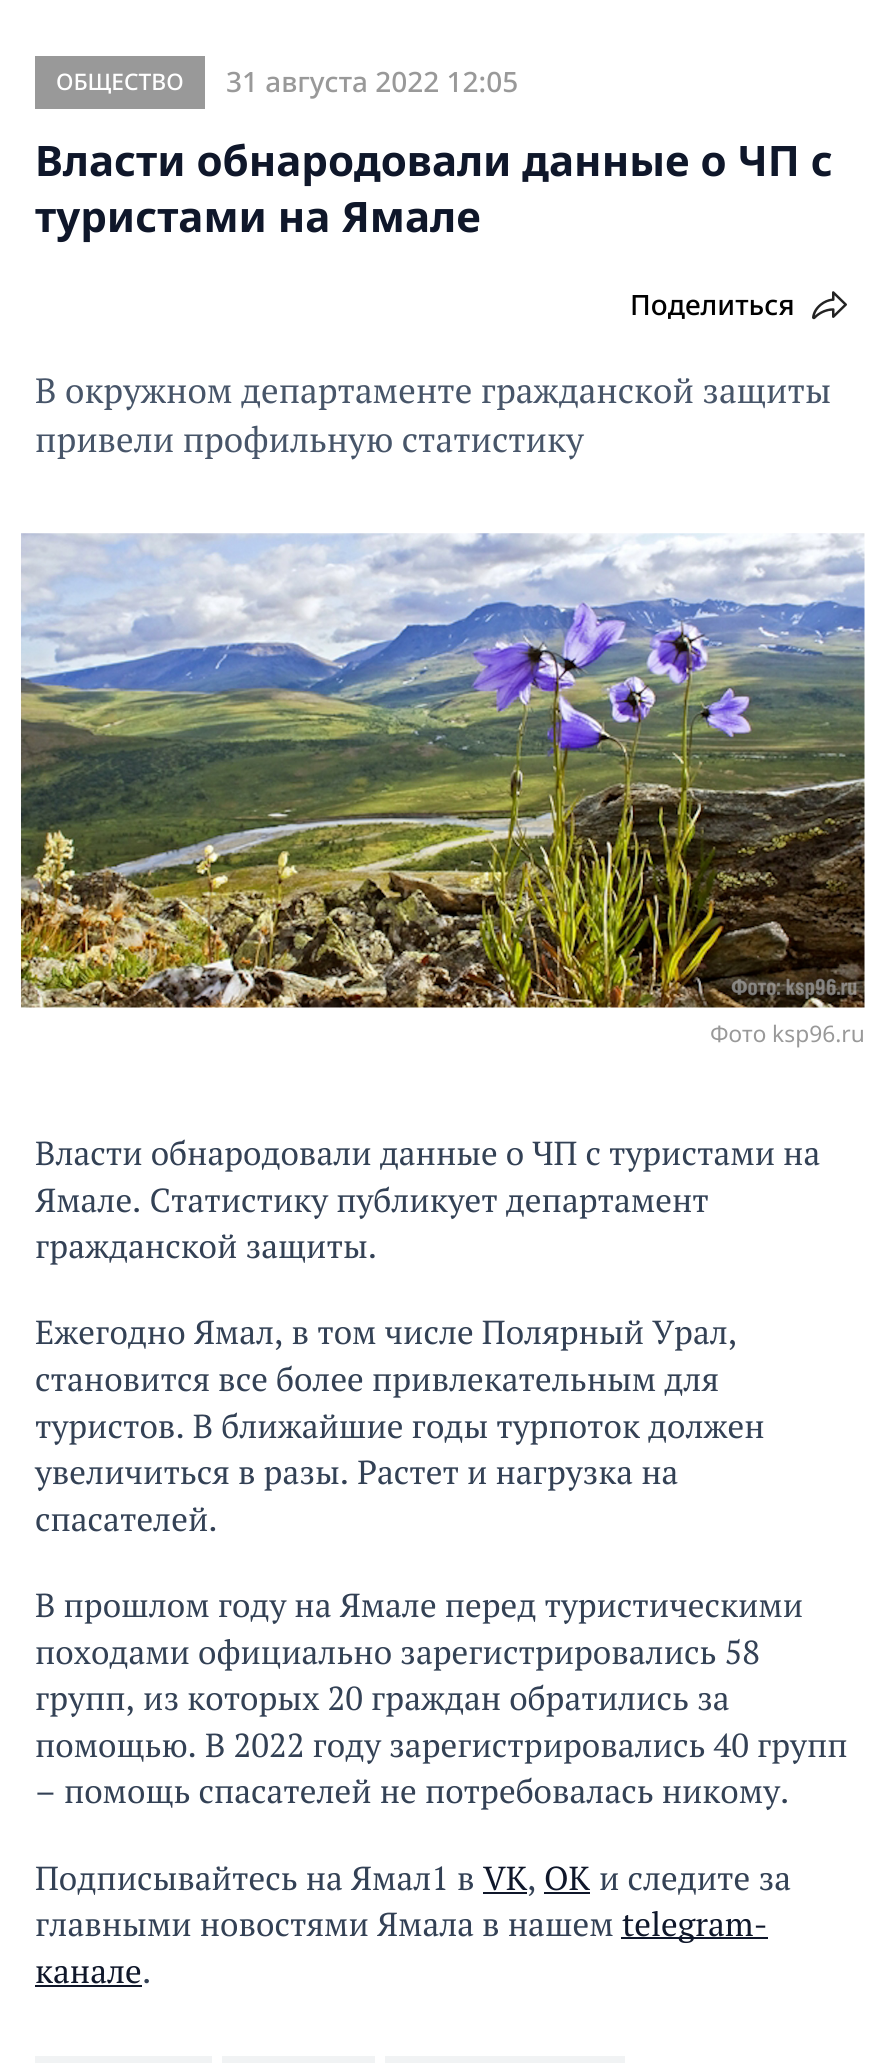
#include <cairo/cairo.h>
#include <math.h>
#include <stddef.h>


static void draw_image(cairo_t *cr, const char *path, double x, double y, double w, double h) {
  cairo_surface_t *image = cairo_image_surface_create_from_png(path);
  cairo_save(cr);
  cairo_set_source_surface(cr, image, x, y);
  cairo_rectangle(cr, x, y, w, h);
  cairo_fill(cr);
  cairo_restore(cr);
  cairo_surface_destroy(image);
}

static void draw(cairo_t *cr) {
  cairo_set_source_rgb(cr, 1, 1, 1);
  cairo_paint(cr);
  cairo_set_source_rgb(cr, 153 / 255.0, 153 / 255.0, 153 / 255.0);
  cairo_rectangle(cr, 35, 56, 170, 53);
  cairo_fill(cr);
  draw_image(cr, "images/1.png", 812, 291, 35, 29);
  draw_image(cr, "images/2.png", 21, 533, 844, 475);
  cairo_set_source_rgb(cr, 15 / 255.0, 23 / 255.0, 42 / 255.0);
  cairo_rectangle(cr, 483, 1892, 44, 2);
  cairo_fill(cr);
  cairo_rectangle(cr, 544, 1892, 46, 2);
  cairo_fill(cr);
  cairo_rectangle(cr, 621, 1937, 147, 2);
  cairo_fill(cr);
  cairo_rectangle(cr, 35, 1985, 107, 2);
  cairo_fill(cr);
  cairo_set_source_rgb(cr, 241 / 255.0, 243 / 255.0, 244 / 255.0);
  cairo_rectangle(cr, 35, 2056, 177, 7);
  cairo_fill(cr);
  cairo_rectangle(cr, 222, 2056, 153, 7);
  cairo_fill(cr);
  cairo_rectangle(cr, 385, 2056, 240, 7);
  cairo_fill(cr);
  cairo_select_font_face(cr, "Noto Sans Medium", CAIRO_FONT_SLANT_NORMAL, CAIRO_FONT_WEIGHT_NORMAL);
  cairo_set_font_size(cr, 22.75);
  cairo_set_source_rgb(cr, 1, 1, 1);
  cairo_move_to(cr, 56, 90);
  cairo_show_text(cr, "ОБЩЕСТВО");
  cairo_set_font_size(cr, 28);
  cairo_set_source_rgb(cr, 153 / 255.0, 153 / 255.0, 153 / 255.0);
  cairo_move_to(cr, 226, 92);
  cairo_show_text(cr, "31 августа 2022 12:05");
  cairo_select_font_face(cr, "Noto Sans", CAIRO_FONT_SLANT_NORMAL, CAIRO_FONT_WEIGHT_BOLD);
  cairo_set_font_size(cr, 42);
  cairo_set_source_rgb(cr, 15 / 255.0, 23 / 255.0, 42 / 255.0);
  cairo_move_to(cr, 35, 176);
  cairo_show_text(cr, "Власти обнародовали данные о ЧП с");
  cairo_move_to(cr, 35, 232);
  cairo_show_text(cr, "туристами на Ямале");
  cairo_select_font_face(cr, "Noto Sans Medium", CAIRO_FONT_SLANT_NORMAL, CAIRO_FONT_WEIGHT_NORMAL);
  cairo_set_font_size(cr, 28);
  cairo_set_source_rgb(cr, 0, 0, 0);
  cairo_move_to(cr, 630, 315);
  cairo_show_text(cr, "Поделиться");
  cairo_select_font_face(cr, "PT Serif", CAIRO_FONT_SLANT_NORMAL, CAIRO_FONT_WEIGHT_NORMAL);
  cairo_set_font_size(cr, 35);
  cairo_set_source_rgb(cr, 71 / 255.0, 85 / 255.0, 105 / 255.0);
  cairo_move_to(cr, 35, 403);
  cairo_show_text(cr, "В окружном департаменте гражданской защиты");
  cairo_move_to(cr, 35, 452);
  cairo_show_text(cr, "привели профильную статистику");
  cairo_select_font_face(cr, "Noto Sans", CAIRO_FONT_SLANT_NORMAL, CAIRO_FONT_WEIGHT_NORMAL);
  cairo_set_font_size(cr, 22.75);
  cairo_set_source_rgb(cr, 153 / 255.0, 153 / 255.0, 153 / 255.0);
  cairo_move_to(cr, 710, 1042);
  cairo_show_text(cr, "Фото ksp96.ru");
  cairo_select_font_face(cr, "PT Serif", CAIRO_FONT_SLANT_NORMAL, CAIRO_FONT_WEIGHT_NORMAL);
  cairo_set_font_size(cr, 33.25);
  cairo_set_source_rgb(cr, 51 / 255.0, 65 / 255.0, 85 / 255.0);
  cairo_move_to(cr, 35, 1165);
  cairo_show_text(cr, "Власти обнародовали данные о ЧП с туристами на");
  cairo_move_to(cr, 35, 1212);
  cairo_show_text(cr, "Ямале. Статистику публикует департамент");
  cairo_move_to(cr, 35, 1258);
  cairo_show_text(cr, "гражданской защиты.");
  cairo_move_to(cr, 35, 1344);
  cairo_show_text(cr, "Ежегодно Ямал, в том числе Полярный Урал,");
  cairo_move_to(cr, 35, 1391);
  cairo_show_text(cr, "становится все более привлекательным для");
  cairo_move_to(cr, 35, 1438);
  cairo_show_text(cr, "туристов. В ближайшие годы турпоток должен");
  cairo_move_to(cr, 35, 1484);
  cairo_show_text(cr, "увеличиться в разы. Растет и нагрузка на");
  cairo_move_to(cr, 35, 1531);
  cairo_show_text(cr, "спасателей.");
  cairo_move_to(cr, 35, 1617);
  cairo_show_text(cr, "В прошлом году на Ямале перед туристическими");
  cairo_move_to(cr, 35, 1664);
  cairo_show_text(cr, "походами официально зарегистрировались 58");
  cairo_move_to(cr, 35, 1710);
  cairo_show_text(cr, "групп, из которых 20 граждан обратились за");
  cairo_move_to(cr, 35, 1757);
  cairo_show_text(cr, "помощью. В 2022 году зарегистрировались 40 групп");
  cairo_move_to(cr, 35, 1803);
  cairo_show_text(cr, "– помощь спасателей не потребовалась никому.");
  cairo_move_to(cr, 35, 1890);
  cairo_show_text(cr, "Подписывайтесь на Ямал1 в");
  cairo_set_source_rgb(cr, 15 / 255.0, 23 / 255.0, 42 / 255.0);
  cairo_move_to(cr, 483, 1890);
  cairo_show_text(cr, "VK");
  cairo_set_source_rgb(cr, 51 / 255.0, 65 / 255.0, 85 / 255.0);
  cairo_move_to(cr, 527, 1890);
  cairo_show_text(cr, ",");
  cairo_set_source_rgb(cr, 15 / 255.0, 23 / 255.0, 42 / 255.0);
  cairo_move_to(cr, 544, 1890);
  cairo_show_text(cr, "ОК");
  cairo_set_source_rgb(cr, 51 / 255.0, 65 / 255.0, 85 / 255.0);
  cairo_move_to(cr, 599, 1890);
  cairo_show_text(cr, "и следите за");
  cairo_move_to(cr, 35, 1936);
  cairo_show_text(cr, "главными новостями Ямала в нашем");
  cairo_set_source_rgb(cr, 15 / 255.0, 23 / 255.0, 42 / 255.0);
  cairo_move_to(cr, 622, 1936);
  cairo_show_text(cr, "telegram-");
  cairo_move_to(cr, 35, 1983);
  cairo_show_text(cr, "канале");
  cairo_set_source_rgb(cr, 51 / 255.0, 65 / 255.0, 85 / 255.0);
  cairo_move_to(cr, 142, 1983);
  cairo_show_text(cr, ".");
}

int main(void) {
  cairo_surface_t *surface = cairo_image_surface_create(CAIRO_FORMAT_RGB24, 885, 2063);
  cairo_t *cr = cairo_create(surface);
  cairo_font_options_t *options = cairo_font_options_create();
  cairo_font_options_set_hint_metrics(options, CAIRO_HINT_METRICS_OFF);
  cairo_font_options_set_hint_style(options, CAIRO_HINT_STYLE_NONE);
  cairo_set_font_options(cr, options);
  cairo_set_miter_limit(cr, 4);
  draw(cr);
  cairo_surface_write_to_png(surface, "out.png");
  cairo_font_options_destroy(options);
  cairo_destroy(cr);
  cairo_surface_destroy(surface);
  return 0;
}
